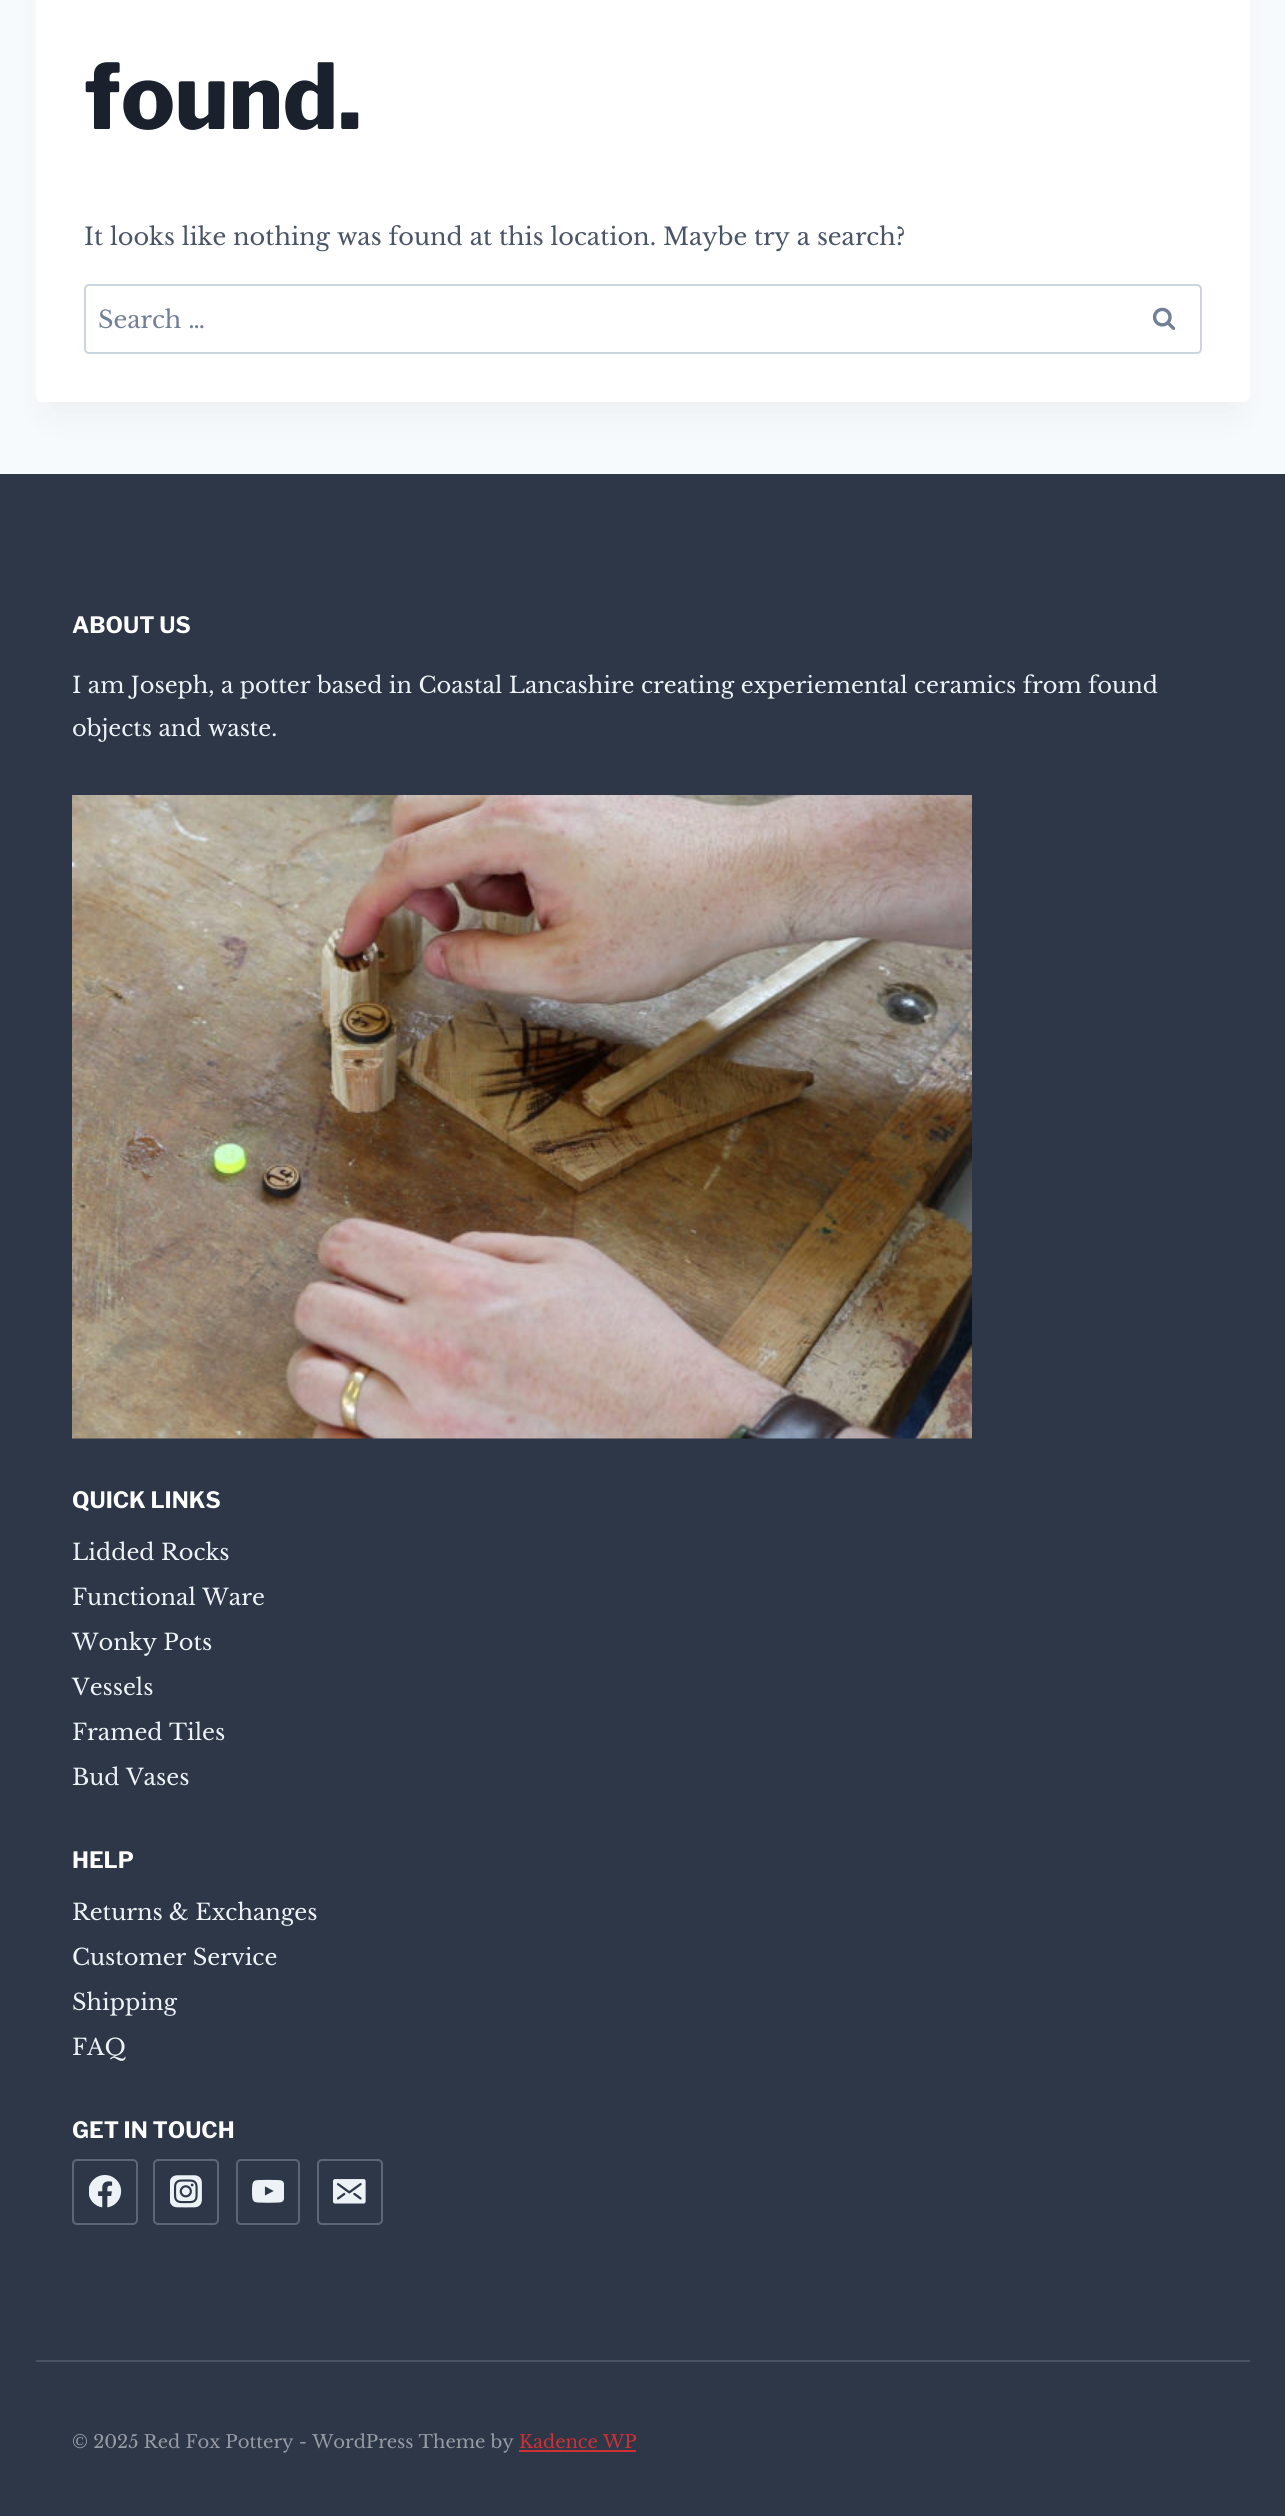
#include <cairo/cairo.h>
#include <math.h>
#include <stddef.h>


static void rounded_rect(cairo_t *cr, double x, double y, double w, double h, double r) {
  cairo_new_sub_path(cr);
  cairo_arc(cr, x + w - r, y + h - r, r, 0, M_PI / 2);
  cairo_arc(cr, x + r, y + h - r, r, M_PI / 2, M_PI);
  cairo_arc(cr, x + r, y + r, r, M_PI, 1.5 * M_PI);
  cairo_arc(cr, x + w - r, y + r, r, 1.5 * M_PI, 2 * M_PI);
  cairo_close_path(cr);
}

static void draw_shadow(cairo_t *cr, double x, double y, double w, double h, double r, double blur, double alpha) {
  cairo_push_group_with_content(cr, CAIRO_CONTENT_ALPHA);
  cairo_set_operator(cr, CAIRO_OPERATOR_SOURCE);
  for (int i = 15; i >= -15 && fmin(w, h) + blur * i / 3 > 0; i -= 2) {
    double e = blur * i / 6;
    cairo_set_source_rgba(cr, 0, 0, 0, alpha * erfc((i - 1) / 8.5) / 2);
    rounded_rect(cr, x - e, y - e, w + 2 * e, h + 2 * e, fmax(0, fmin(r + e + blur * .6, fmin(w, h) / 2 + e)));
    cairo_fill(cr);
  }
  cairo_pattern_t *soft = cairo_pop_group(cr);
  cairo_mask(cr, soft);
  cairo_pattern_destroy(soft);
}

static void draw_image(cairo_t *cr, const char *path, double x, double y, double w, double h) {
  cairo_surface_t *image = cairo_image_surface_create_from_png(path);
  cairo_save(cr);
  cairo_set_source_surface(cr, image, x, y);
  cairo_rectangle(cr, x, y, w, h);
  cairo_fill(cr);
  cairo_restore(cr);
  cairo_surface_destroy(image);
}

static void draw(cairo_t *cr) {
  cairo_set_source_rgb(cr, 247 / 255.0, 250 / 255.0, 252 / 255.0);
  cairo_paint(cr);
  cairo_set_source_rgb(cr, 0, 0, 0);
  draw_shadow(cr, 51, -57, 1184, 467, 0, 19, 0.05);
  cairo_set_source_rgb(cr, 1, 1, 1);
  rounded_rect(cr, 36, -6, 1214, 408, 6);
  cairo_fill(cr);
  rounded_rect(cr, 85, 285, 1116, 68, 4);
  cairo_set_source_rgb(cr, 203 / 255.0, 213 / 255.0, 224 / 255.0);
  cairo_stroke(cr);
  draw_image(cr, "images/1.png", 1152, 307, 24, 23);
  cairo_set_source_rgb(cr, 45 / 255.0, 55 / 255.0, 72 / 255.0);
  cairo_rectangle(cr, 0, 474, 1285, 2042);
  cairo_fill(cr);
  draw_image(cr, "images/2.png", 72, 795, 900, 644);
  rounded_rect(cr, 73, 2160, 64, 64, 4);
  cairo_set_source_rgb(cr, 93 / 255.0, 102 / 255.0, 116 / 255.0);
  cairo_stroke(cr);
  draw_image(cr, "images/3.png", 89, 2175, 33, 33);
  rounded_rect(cr, 154, 2160, 64, 64, 4);
  cairo_stroke(cr);
  draw_image(cr, "images/4.png", 170, 2175, 32, 33);
  rounded_rect(cr, 237, 2160, 62, 64, 4);
  cairo_stroke(cr);
  draw_image(cr, "images/5.png", 252, 2179, 32, 24);
  rounded_rect(cr, 318, 2160, 64, 64, 4);
  cairo_stroke(cr);
  draw_image(cr, "images/6.png", 333, 2179, 33, 25);
  cairo_set_source_rgb(cr, 74 / 255.0, 83 / 255.0, 98 / 255.0);
  cairo_rectangle(cr, 36, 2360, 1214, 2);
  cairo_fill(cr);
  cairo_set_source_rgb(cr, 206 / 255.0, 49 / 255.0, 52 / 255.0);
  cairo_rectangle(cr, 519, 2450, 117, 2);
  cairo_fill(cr);
  cairo_select_font_face(cr, "Libre Franklin ExtraBold", CAIRO_FONT_SLANT_NORMAL, CAIRO_FONT_WEIGHT_NORMAL);
  cairo_set_font_size(cr, 90);
  cairo_set_source_rgb(cr, 26 / 255.0, 32 / 255.0, 44 / 255.0);
  cairo_move_to(cr, 84, 129);
  cairo_show_text(cr, "found.");
  cairo_select_font_face(cr, "Libre Baskerville", CAIRO_FONT_SLANT_NORMAL, CAIRO_FONT_WEIGHT_NORMAL);
  cairo_set_font_size(cr, 24);
  cairo_set_source_rgb(cr, 74 / 255.0, 85 / 255.0, 104 / 255.0);
  cairo_move_to(cr, 84, 245);
  cairo_show_text(cr, "It looks like nothing was found at this location. Maybe try a search?");
  cairo_set_source_rgb(cr, 113 / 255.0, 128 / 255.0, 150 / 255.0);
  cairo_move_to(cr, 98, 328);
  cairo_show_text(cr, "Search …");
  cairo_select_font_face(cr, "Libre Franklin", CAIRO_FONT_SLANT_NORMAL, CAIRO_FONT_WEIGHT_BOLD);
  cairo_set_font_size(cr, 22.5);
  cairo_set_source_rgb(cr, 1, 1, 1);
  cairo_move_to(cr, 72, 633);
  cairo_show_text(cr, "ABOUT US");
  cairo_select_font_face(cr, "Libre Baskerville", CAIRO_FONT_SLANT_NORMAL, CAIRO_FONT_WEIGHT_NORMAL);
  cairo_set_source_rgb(cr, 237 / 255.0, 242 / 255.0, 247 / 255.0);
  cairo_move_to(cr, 72, 693);
  cairo_show_text(cr, "I am Joseph, a potter based in Coastal Lancashire creating experiemental ceramics from found");
  cairo_move_to(cr, 72, 736);
  cairo_show_text(cr, "objects and waste.");
  cairo_select_font_face(cr, "Libre Franklin", CAIRO_FONT_SLANT_NORMAL, CAIRO_FONT_WEIGHT_BOLD);
  cairo_set_source_rgb(cr, 1, 1, 1);
  cairo_move_to(cr, 72, 1508);
  cairo_show_text(cr, "QUICK LINKS");
  cairo_select_font_face(cr, "Libre Baskerville", CAIRO_FONT_SLANT_NORMAL, CAIRO_FONT_WEIGHT_NORMAL);
  cairo_set_source_rgb(cr, 237 / 255.0, 242 / 255.0, 247 / 255.0);
  cairo_move_to(cr, 72, 1560);
  cairo_show_text(cr, "Lidded Rocks");
  cairo_move_to(cr, 72, 1605);
  cairo_show_text(cr, "Functional Ware");
  cairo_move_to(cr, 72, 1650);
  cairo_show_text(cr, "Wonky Pots");
  cairo_move_to(cr, 72, 1695);
  cairo_show_text(cr, "Vessels");
  cairo_move_to(cr, 72, 1740);
  cairo_show_text(cr, "Framed Tiles");
  cairo_move_to(cr, 72, 1785);
  cairo_show_text(cr, "Bud Vases");
  cairo_select_font_face(cr, "Libre Franklin", CAIRO_FONT_SLANT_NORMAL, CAIRO_FONT_WEIGHT_BOLD);
  cairo_set_source_rgb(cr, 1, 1, 1);
  cairo_move_to(cr, 72, 1868);
  cairo_show_text(cr, "HELP");
  cairo_select_font_face(cr, "Libre Baskerville", CAIRO_FONT_SLANT_NORMAL, CAIRO_FONT_WEIGHT_NORMAL);
  cairo_set_source_rgb(cr, 237 / 255.0, 242 / 255.0, 247 / 255.0);
  cairo_move_to(cr, 72, 1920);
  cairo_show_text(cr, "Returns & Exchanges");
  cairo_move_to(cr, 72, 1965);
  cairo_show_text(cr, "Customer Service");
  cairo_move_to(cr, 72, 2010);
  cairo_show_text(cr, "Shipping");
  cairo_move_to(cr, 72, 2055);
  cairo_show_text(cr, "FAQ");
  cairo_select_font_face(cr, "Libre Franklin", CAIRO_FONT_SLANT_NORMAL, CAIRO_FONT_WEIGHT_BOLD);
  cairo_set_source_rgb(cr, 1, 1, 1);
  cairo_move_to(cr, 72, 2138);
  cairo_show_text(cr, "GET IN TOUCH");
  cairo_select_font_face(cr, "Libre Baskerville", CAIRO_FONT_SLANT_NORMAL, CAIRO_FONT_WEIGHT_NORMAL);
  cairo_set_font_size(cr, 18);
  cairo_set_source_rgb(cr, 150 / 255.0, 155 / 255.0, 164 / 255.0);
  cairo_move_to(cr, 72, 2448);
  cairo_show_text(cr, "© 2025 Red Fox Pottery - WordPress Theme by");
  cairo_set_source_rgb(cr, 206 / 255.0, 49 / 255.0, 52 / 255.0);
  cairo_move_to(cr, 519, 2448);
  cairo_show_text(cr, "Kadence WP");
}

int main(void) {
  cairo_surface_t *surface = cairo_image_surface_create(CAIRO_FORMAT_RGB24, 1285, 2516);
  cairo_t *cr = cairo_create(surface);
  cairo_font_options_t *options = cairo_font_options_create();
  cairo_font_options_set_hint_metrics(options, CAIRO_HINT_METRICS_OFF);
  cairo_font_options_set_hint_style(options, CAIRO_HINT_STYLE_NONE);
  cairo_set_font_options(cr, options);
  cairo_set_miter_limit(cr, 4);
  draw(cr);
  cairo_surface_write_to_png(surface, "out.png");
  cairo_font_options_destroy(options);
  cairo_destroy(cr);
  cairo_surface_destroy(surface);
  return 0;
}
